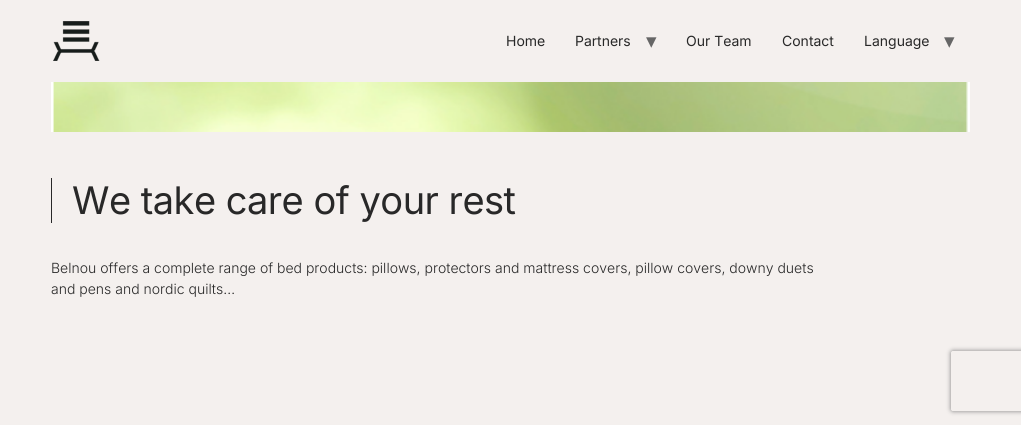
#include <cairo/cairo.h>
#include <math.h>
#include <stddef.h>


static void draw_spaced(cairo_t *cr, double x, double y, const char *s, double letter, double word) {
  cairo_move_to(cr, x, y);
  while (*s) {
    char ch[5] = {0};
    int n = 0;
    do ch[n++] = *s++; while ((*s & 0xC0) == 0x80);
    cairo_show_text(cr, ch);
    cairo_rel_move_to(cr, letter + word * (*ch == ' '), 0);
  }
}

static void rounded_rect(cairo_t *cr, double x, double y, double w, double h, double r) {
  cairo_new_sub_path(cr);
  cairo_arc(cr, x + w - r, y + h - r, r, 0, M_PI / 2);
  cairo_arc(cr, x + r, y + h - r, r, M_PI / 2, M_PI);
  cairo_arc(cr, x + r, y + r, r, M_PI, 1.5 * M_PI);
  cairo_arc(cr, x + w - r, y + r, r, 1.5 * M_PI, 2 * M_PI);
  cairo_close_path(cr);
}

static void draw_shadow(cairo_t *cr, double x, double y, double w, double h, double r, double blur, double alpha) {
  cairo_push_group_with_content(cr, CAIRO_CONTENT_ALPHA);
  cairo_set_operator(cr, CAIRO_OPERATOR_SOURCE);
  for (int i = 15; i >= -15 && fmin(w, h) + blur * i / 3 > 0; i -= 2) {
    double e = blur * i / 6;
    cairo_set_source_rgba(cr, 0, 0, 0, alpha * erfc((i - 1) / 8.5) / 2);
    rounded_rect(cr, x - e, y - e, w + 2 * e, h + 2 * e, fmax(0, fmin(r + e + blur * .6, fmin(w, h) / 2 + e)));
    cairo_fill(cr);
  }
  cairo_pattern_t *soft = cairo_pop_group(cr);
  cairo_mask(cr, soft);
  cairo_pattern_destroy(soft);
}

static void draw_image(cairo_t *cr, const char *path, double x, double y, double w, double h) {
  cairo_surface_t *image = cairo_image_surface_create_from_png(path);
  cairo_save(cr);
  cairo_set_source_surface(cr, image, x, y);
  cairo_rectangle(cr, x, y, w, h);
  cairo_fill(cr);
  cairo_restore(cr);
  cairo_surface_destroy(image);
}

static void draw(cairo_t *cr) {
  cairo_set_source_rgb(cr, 244 / 255.0, 240 / 255.0, 238 / 255.0);
  cairo_paint(cr);
  draw_image(cr, "images/1.png", 53, 21, 47, 40);
  draw_image(cr, "images/2.png", 51, 82, 919, 50);
  cairo_set_source_rgb(cr, 40 / 255.0, 40 / 255.0, 40 / 255.0);
  cairo_rectangle(cr, 51, 178, 1, 45);
  cairo_fill(cr);
  cairo_save(cr);
  cairo_set_fill_rule(cr, CAIRO_FILL_RULE_EVEN_ODD);
  cairo_new_path(cr);
  cairo_move_to(cr, 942, 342);
  cairo_line_to(cr, 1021, 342);
  cairo_line_to(cr, 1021, 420);
  cairo_line_to(cr, 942, 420);
  cairo_close_path(cr);
  cairo_move_to(cr, 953, 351);
  cairo_line_to(cr, 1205, 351);
  cairo_curve_to(cr, 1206, 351, 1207, 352, 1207, 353);
  cairo_line_to(cr, 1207, 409);
  cairo_curve_to(cr, 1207, 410, 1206, 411, 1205, 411);
  cairo_line_to(cr, 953, 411);
  cairo_curve_to(cr, 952, 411, 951, 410, 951, 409);
  cairo_line_to(cr, 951, 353);
  cairo_curve_to(cr, 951, 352, 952, 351, 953, 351);
  cairo_close_path(cr);
  cairo_clip(cr);
  cairo_set_source_rgb(cr, 128 / 255.0, 128 / 255.0, 128 / 255.0);
  draw_shadow(cr, 951, 351, 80, 60, 2, 2.5, 1);
  cairo_restore(cr);
  cairo_select_font_face(cr, "Inter", CAIRO_FONT_SLANT_NORMAL, CAIRO_FONT_WEIGHT_NORMAL);
  cairo_set_font_size(cr, 14);
  cairo_move_to(cr, 506, 46);
  cairo_show_text(cr, "Home");
  cairo_move_to(cr, 575, 46);
  cairo_show_text(cr, "Partners");
  cairo_select_font_face(cr, "DejaVu Sans", CAIRO_FONT_SLANT_NORMAL, CAIRO_FONT_WEIGHT_NORMAL);
  cairo_set_font_size(cr, 21);
  cairo_set_source_rgb(cr, 102 / 255.0, 102 / 255.0, 102 / 255.0);
  cairo_move_to(cr, 646, 48);
  cairo_show_text(cr, "▾");
  cairo_select_font_face(cr, "Inter", CAIRO_FONT_SLANT_NORMAL, CAIRO_FONT_WEIGHT_NORMAL);
  cairo_set_font_size(cr, 14);
  cairo_set_source_rgb(cr, 40 / 255.0, 40 / 255.0, 40 / 255.0);
  cairo_move_to(cr, 686, 46);
  cairo_show_text(cr, "Our Team");
  cairo_move_to(cr, 782, 46);
  cairo_show_text(cr, "Contact");
  cairo_move_to(cr, 864, 46);
  cairo_show_text(cr, "Language");
  cairo_select_font_face(cr, "DejaVu Sans", CAIRO_FONT_SLANT_NORMAL, CAIRO_FONT_WEIGHT_NORMAL);
  cairo_set_font_size(cr, 21);
  cairo_set_source_rgb(cr, 102 / 255.0, 102 / 255.0, 102 / 255.0);
  cairo_move_to(cr, 944, 48);
  cairo_show_text(cr, "▾");
  cairo_select_font_face(cr, "Inter", CAIRO_FONT_SLANT_NORMAL, CAIRO_FONT_WEIGHT_NORMAL);
  cairo_set_font_size(cr, 38);
  cairo_set_source_rgb(cr, 40 / 255.0, 40 / 255.0, 40 / 255.0);
  draw_spaced(cr, 72, 214, "We take care of your rest", -0.5, 0);
  cairo_select_font_face(cr, "Inter Light", CAIRO_FONT_SLANT_NORMAL, CAIRO_FONT_WEIGHT_NORMAL);
  cairo_set_font_size(cr, 14);
  cairo_move_to(cr, 51, 273);
  cairo_show_text(cr, "Belnou offers a complete range of bed products: pillows, protectors and mattress covers, pillow covers, downy duets");
  cairo_move_to(cr, 51, 294);
  cairo_show_text(cr, "and pens and nordic quilts…");
}

int main(void) {
  cairo_surface_t *surface = cairo_image_surface_create(CAIRO_FORMAT_RGB24, 1021, 425);
  cairo_t *cr = cairo_create(surface);
  cairo_font_options_t *options = cairo_font_options_create();
  cairo_font_options_set_hint_metrics(options, CAIRO_HINT_METRICS_OFF);
  cairo_font_options_set_hint_style(options, CAIRO_HINT_STYLE_NONE);
  cairo_set_font_options(cr, options);
  cairo_set_miter_limit(cr, 4);
  draw(cr);
  cairo_surface_write_to_png(surface, "out.png");
  cairo_font_options_destroy(options);
  cairo_destroy(cr);
  cairo_surface_destroy(surface);
  return 0;
}
